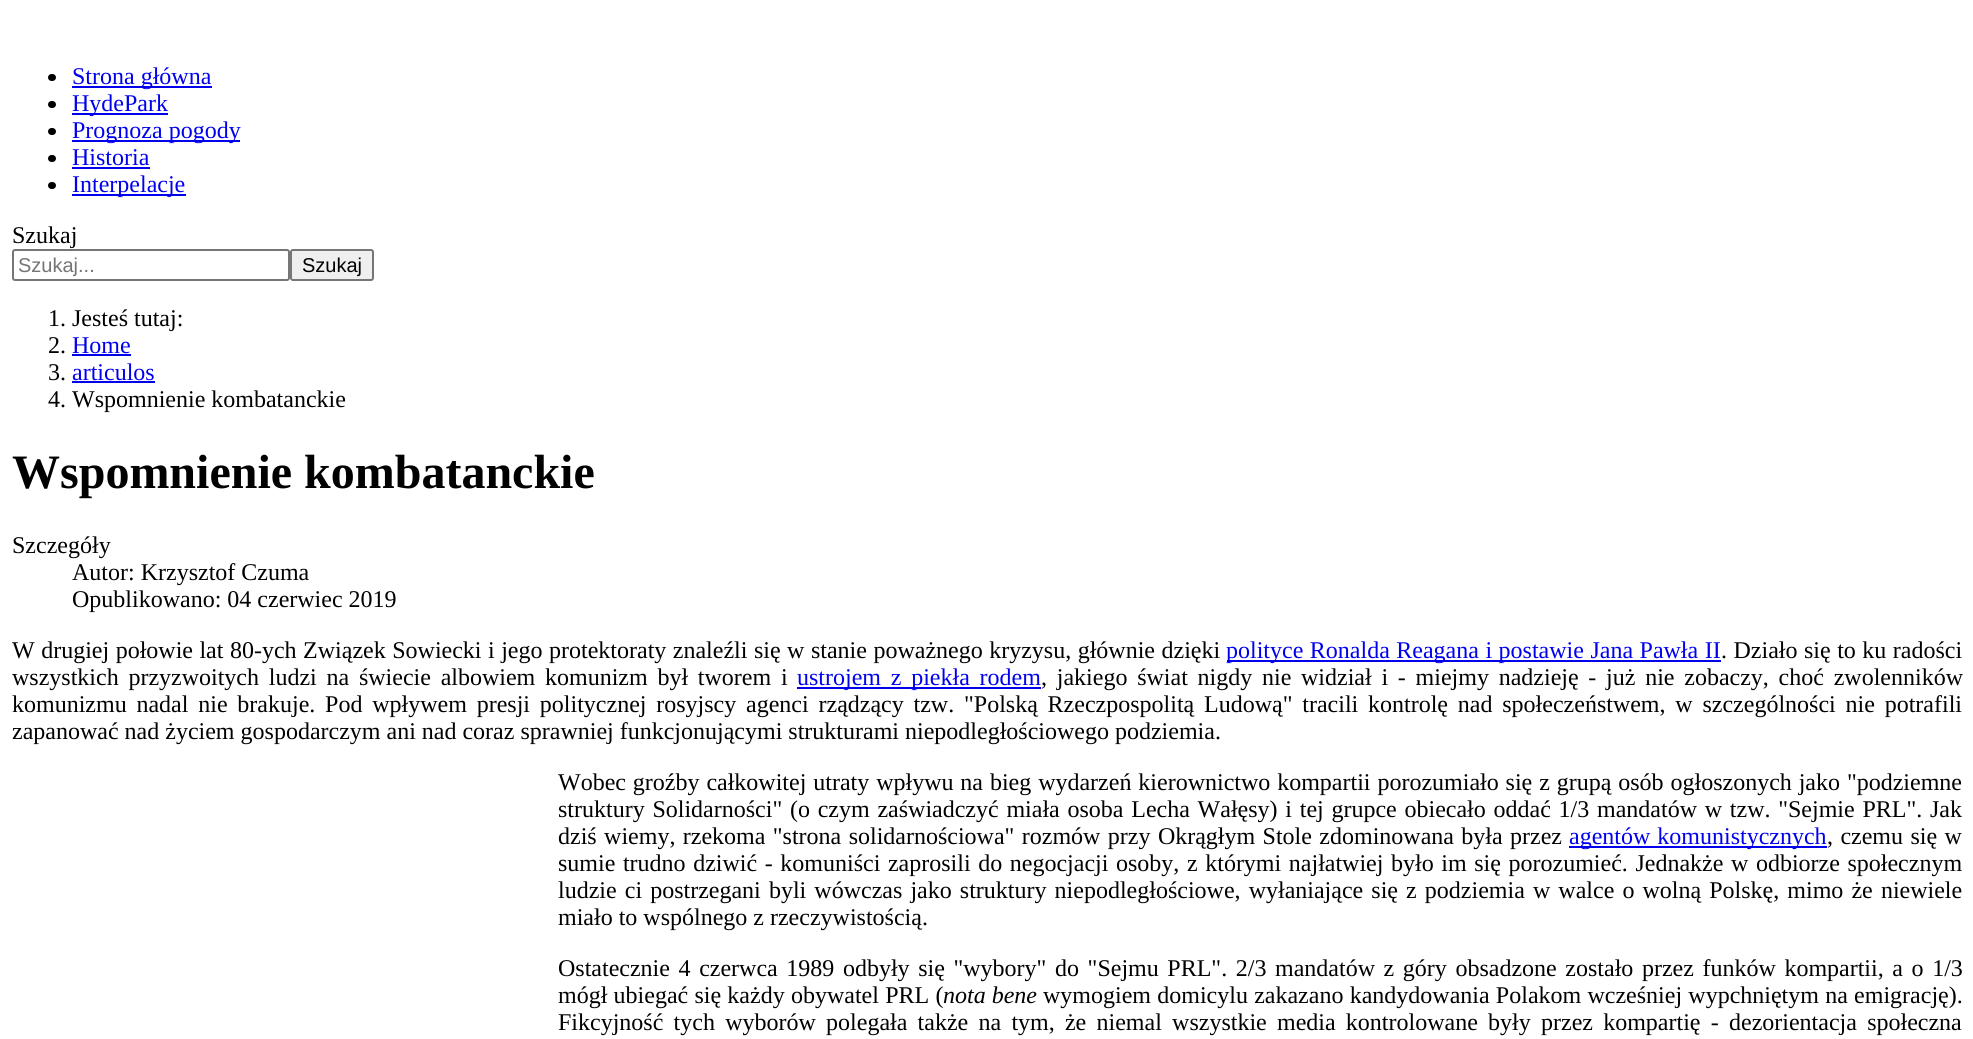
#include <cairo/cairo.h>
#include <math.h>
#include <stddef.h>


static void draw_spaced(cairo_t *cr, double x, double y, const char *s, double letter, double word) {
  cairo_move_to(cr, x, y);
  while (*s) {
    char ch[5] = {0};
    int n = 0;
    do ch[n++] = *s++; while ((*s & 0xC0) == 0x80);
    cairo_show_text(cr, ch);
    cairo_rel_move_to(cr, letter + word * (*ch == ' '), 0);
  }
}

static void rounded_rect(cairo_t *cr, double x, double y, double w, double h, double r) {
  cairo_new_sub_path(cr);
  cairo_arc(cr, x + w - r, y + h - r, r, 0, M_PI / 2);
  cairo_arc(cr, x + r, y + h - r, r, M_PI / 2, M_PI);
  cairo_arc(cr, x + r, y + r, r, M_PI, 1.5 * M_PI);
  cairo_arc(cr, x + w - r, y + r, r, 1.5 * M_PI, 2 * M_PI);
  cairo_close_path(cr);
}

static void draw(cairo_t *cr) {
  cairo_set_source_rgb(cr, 1, 1, 1);
  cairo_paint(cr);
  cairo_set_source_rgb(cr, 0, 0, 0);
  rounded_rect(cr, 48, 74, 8, 7, 3.5);
  cairo_fill(cr);
  cairo_set_source_rgb(cr, 0, 0, 238 / 255.0);
  cairo_rectangle(cr, 72, 86, 140, 2);
  cairo_fill(cr);
  cairo_set_source_rgb(cr, 0, 0, 0);
  rounded_rect(cr, 48, 101, 8, 7, 3.5);
  cairo_fill(cr);
  cairo_set_source_rgb(cr, 0, 0, 238 / 255.0);
  cairo_rectangle(cr, 72, 113, 96, 2);
  cairo_fill(cr);
  cairo_set_source_rgb(cr, 0, 0, 0);
  rounded_rect(cr, 48, 128, 8, 7, 3.5);
  cairo_fill(cr);
  cairo_set_source_rgb(cr, 0, 0, 238 / 255.0);
  cairo_rectangle(cr, 72, 140, 168, 2);
  cairo_fill(cr);
  cairo_set_source_rgb(cr, 0, 0, 0);
  rounded_rect(cr, 48, 155, 8, 7, 3.5);
  cairo_fill(cr);
  cairo_set_source_rgb(cr, 0, 0, 238 / 255.0);
  cairo_rectangle(cr, 72, 167, 78, 2);
  cairo_fill(cr);
  cairo_set_source_rgb(cr, 0, 0, 0);
  rounded_rect(cr, 48, 182, 8, 7, 3.5);
  cairo_fill(cr);
  cairo_set_source_rgb(cr, 0, 0, 238 / 255.0);
  cairo_rectangle(cr, 72, 194, 114, 2);
  cairo_fill(cr);
  rounded_rect(cr, 13, 250, 276, 30, 2);
  cairo_set_source_rgb(cr, 118 / 255.0, 118 / 255.0, 118 / 255.0);
  cairo_stroke(cr);
  cairo_set_source_rgb(cr, 239 / 255.0, 239 / 255.0, 239 / 255.0);
  rounded_rect(cr, 291, 250, 82, 30, 2);
  cairo_fill_preserve(cr);
  cairo_set_source_rgb(cr, 118 / 255.0, 118 / 255.0, 118 / 255.0);
  cairo_stroke(cr);
  cairo_set_source_rgb(cr, 0, 0, 238 / 255.0);
  cairo_rectangle(cr, 72, 354, 59, 2);
  cairo_fill(cr);
  cairo_rectangle(cr, 72, 381, 83, 2);
  cairo_fill(cr);
  cairo_rectangle(cr, 1227, 660, 494, 2);
  cairo_fill(cr);
  cairo_rectangle(cr, 797, 687, 244, 2);
  cairo_fill(cr);
  cairo_rectangle(cr, 1569, 846, 258, 2);
  cairo_fill(cr);
  cairo_select_font_face(cr, "Liberation Serif", CAIRO_FONT_SLANT_NORMAL, CAIRO_FONT_WEIGHT_NORMAL);
  cairo_set_font_size(cr, 24);
  cairo_move_to(cr, 72, 84);
  cairo_show_text(cr, "Strona główna");
  cairo_move_to(cr, 72, 111);
  cairo_show_text(cr, "HydePark");
  cairo_move_to(cr, 72, 138);
  cairo_show_text(cr, "Prognoza pogody");
  cairo_move_to(cr, 72, 165);
  cairo_show_text(cr, "Historia");
  cairo_move_to(cr, 72, 192);
  cairo_show_text(cr, "Interpelacje");
  cairo_set_source_rgb(cr, 0, 0, 0);
  cairo_move_to(cr, 12, 243);
  cairo_show_text(cr, "Szukaj");
  cairo_select_font_face(cr, "Liberation Sans", CAIRO_FONT_SLANT_NORMAL, CAIRO_FONT_WEIGHT_NORMAL);
  cairo_set_font_size(cr, 20);
  cairo_set_source_rgb(cr, 117 / 255.0, 117 / 255.0, 117 / 255.0);
  cairo_move_to(cr, 18, 272);
  cairo_show_text(cr, "Szukaj...");
  cairo_set_source_rgb(cr, 0, 0, 0);
  cairo_move_to(cr, 302, 272);
  cairo_show_text(cr, "Szukaj");
  cairo_select_font_face(cr, "Liberation Serif", CAIRO_FONT_SLANT_NORMAL, CAIRO_FONT_WEIGHT_NORMAL);
  cairo_set_font_size(cr, 24);
  cairo_move_to(cr, 48, 326);
  cairo_show_text(cr, "1. Jesteś tutaj:");
  cairo_move_to(cr, 48, 353);
  cairo_show_text(cr, "2.");
  cairo_set_source_rgb(cr, 0, 0, 238 / 255.0);
  cairo_move_to(cr, 72, 353);
  cairo_show_text(cr, "Home");
  cairo_set_source_rgb(cr, 0, 0, 0);
  cairo_move_to(cr, 48, 380);
  cairo_show_text(cr, "3.");
  cairo_set_source_rgb(cr, 0, 0, 238 / 255.0);
  cairo_move_to(cr, 72, 380);
  cairo_show_text(cr, "articulos");
  cairo_set_source_rgb(cr, 0, 0, 0);
  cairo_move_to(cr, 48, 407);
  cairo_show_text(cr, "4. Wspomnienie kombatanckie");
  cairo_select_font_face(cr, "Liberation Serif", CAIRO_FONT_SLANT_NORMAL, CAIRO_FONT_WEIGHT_BOLD);
  cairo_set_font_size(cr, 48);
  cairo_move_to(cr, 12, 488);
  cairo_show_text(cr, "Wspomnienie kombatanckie");
  cairo_select_font_face(cr, "Liberation Serif", CAIRO_FONT_SLANT_NORMAL, CAIRO_FONT_WEIGHT_NORMAL);
  cairo_set_font_size(cr, 24);
  cairo_move_to(cr, 12, 553);
  cairo_show_text(cr, "Szczegóły");
  cairo_move_to(cr, 72, 580);
  cairo_show_text(cr, "Autor: Krzysztof Czuma");
  cairo_move_to(cr, 72, 607);
  cairo_show_text(cr, "Opublikowano: 04 czerwiec 2019");
  draw_spaced(cr, 12, 658, "W drugiej połowie lat 80-ych Związek Sowiecki i jego protektoraty znaleźli się w stanie poważnego kryzysu, głównie dzięki", 0, 0.5);
  cairo_set_source_rgb(cr, 0, 0, 238 / 255.0);
  draw_spaced(cr, 1226, 658, "polityce Ronalda Reagana i postawie Jana Pawła II", 0, 0.5);
  cairo_set_source_rgb(cr, 0, 0, 0);
  draw_spaced(cr, 1721, 658, ". Działo się to ku radości", 0, 0.5);
  draw_spaced(cr, 12, 685, "wszystkich przyzwoitych ludzi na świecie albowiem komunizm był tworem i", 0, 3.75);
  cairo_set_source_rgb(cr, 0, 0, 238 / 255.0);
  draw_spaced(cr, 797, 685, "ustrojem z piekła rodem", 0, 3.75);
  cairo_set_source_rgb(cr, 0, 0, 0);
  draw_spaced(cr, 1041, 685, ", jakiego świat nigdy nie widział i - miejmy nadzieję - już nie zobaczy, choć zwolenników", 0, 3.75);
  draw_spaced(cr, 12, 712, "komunizmu nadal nie brakuje. Pod wpływem presji politycznej rosyjscy agenci rządzący tzw. \"Polską Rzeczpospolitą Ludową\" tracili kontrolę nad społeczeństwem, w szczególności nie potrafili", 0, 3.8);
  cairo_move_to(cr, 12, 739);
  cairo_show_text(cr, "zapanować nad życiem gospodarczym ani nad coraz sprawniej funkcjonującymi strukturami niepodległościowego podziemia.");
  draw_spaced(cr, 558, 790, "Wobec groźby całkowitej utraty wpływu na bieg wydarzeń kierownictwo kompartii porozumiało się z grupą osób ogłoszonych jako \"podziemne", 0, 0.9);
  draw_spaced(cr, 558, 817, "struktury Solidarności\" (o czym zaświadczyć miała osoba Lecha Wałęsy) i tej grupce obiecało oddać 1/3 mandatów w tzw. \"Sejmie PRL\". Jak", 0, 1.75);
  draw_spaced(cr, 558, 844, "dziś wiemy, rzekoma \"strona solidarnościowa\" rozmów przy Okrągłym Stole zdominowana była przez", 0, 1.4);
  cairo_set_source_rgb(cr, 0, 0, 238 / 255.0);
  draw_spaced(cr, 1569, 844, "agentów komunistycznych", 0, 1);
  cairo_set_source_rgb(cr, 0, 0, 0);
  draw_spaced(cr, 1827, 844, ", czemu się w", 0, 1.4);
  draw_spaced(cr, 558, 871, "sumie trudno dziwić - komuniści zaprosili do negocjacji osoby, z którymi najłatwiej było im się porozumieć. Jednakże w odbiorze społecznym", 0, 1.6);
  draw_spaced(cr, 558, 898, "ludzie ci postrzegani byli wówczas jako struktury niepodległościowe, wyłaniające się z podziemia w walce o wolną Polskę, mimo że niewiele", 0, 2.1);
  cairo_move_to(cr, 558, 925);
  cairo_show_text(cr, "miało to wspólnego z rzeczywistością.");
  draw_spaced(cr, 558, 976, "Ostatecznie 4 czerwca 1989 odbyły się \"wybory\" do \"Sejmu PRL\". 2/3 mandatów z góry obsadzone zostało przez funków kompartii, a o 1/3", 0, 2.6);
  draw_spaced(cr, 558, 1003, "mógł ubiegać się każdy obywatel PRL (", 0, 0.25);
  cairo_select_font_face(cr, "Liberation Serif", CAIRO_FONT_SLANT_ITALIC, CAIRO_FONT_WEIGHT_NORMAL);
  cairo_move_to(cr, 943, 1003);
  cairo_show_text(cr, "nota bene");
  cairo_select_font_face(cr, "Liberation Serif", CAIRO_FONT_SLANT_NORMAL, CAIRO_FONT_WEIGHT_NORMAL);
  draw_spaced(cr, 1043, 1003, "wymogiem domicylu zakazano kandydowania Polakom wcześniej wypchniętym na emigrację).", 0, 0.25);
  draw_spaced(cr, 558, 1030, "Fikcyjność tych wyborów polegała także na tym, że niemal wszystkie media kontrolowane były przez kompartię - dezorientacja społeczna", 0, 4.25);
}

int main(void) {
  cairo_surface_t *surface = cairo_image_surface_create(CAIRO_FORMAT_RGB24, 1973, 1039);
  cairo_t *cr = cairo_create(surface);
  cairo_font_options_t *options = cairo_font_options_create();
  cairo_font_options_set_hint_metrics(options, CAIRO_HINT_METRICS_OFF);
  cairo_font_options_set_hint_style(options, CAIRO_HINT_STYLE_NONE);
  cairo_set_font_options(cr, options);
  cairo_set_miter_limit(cr, 4);
  draw(cr);
  cairo_surface_write_to_png(surface, "out.png");
  cairo_font_options_destroy(options);
  cairo_destroy(cr);
  cairo_surface_destroy(surface);
  return 0;
}
